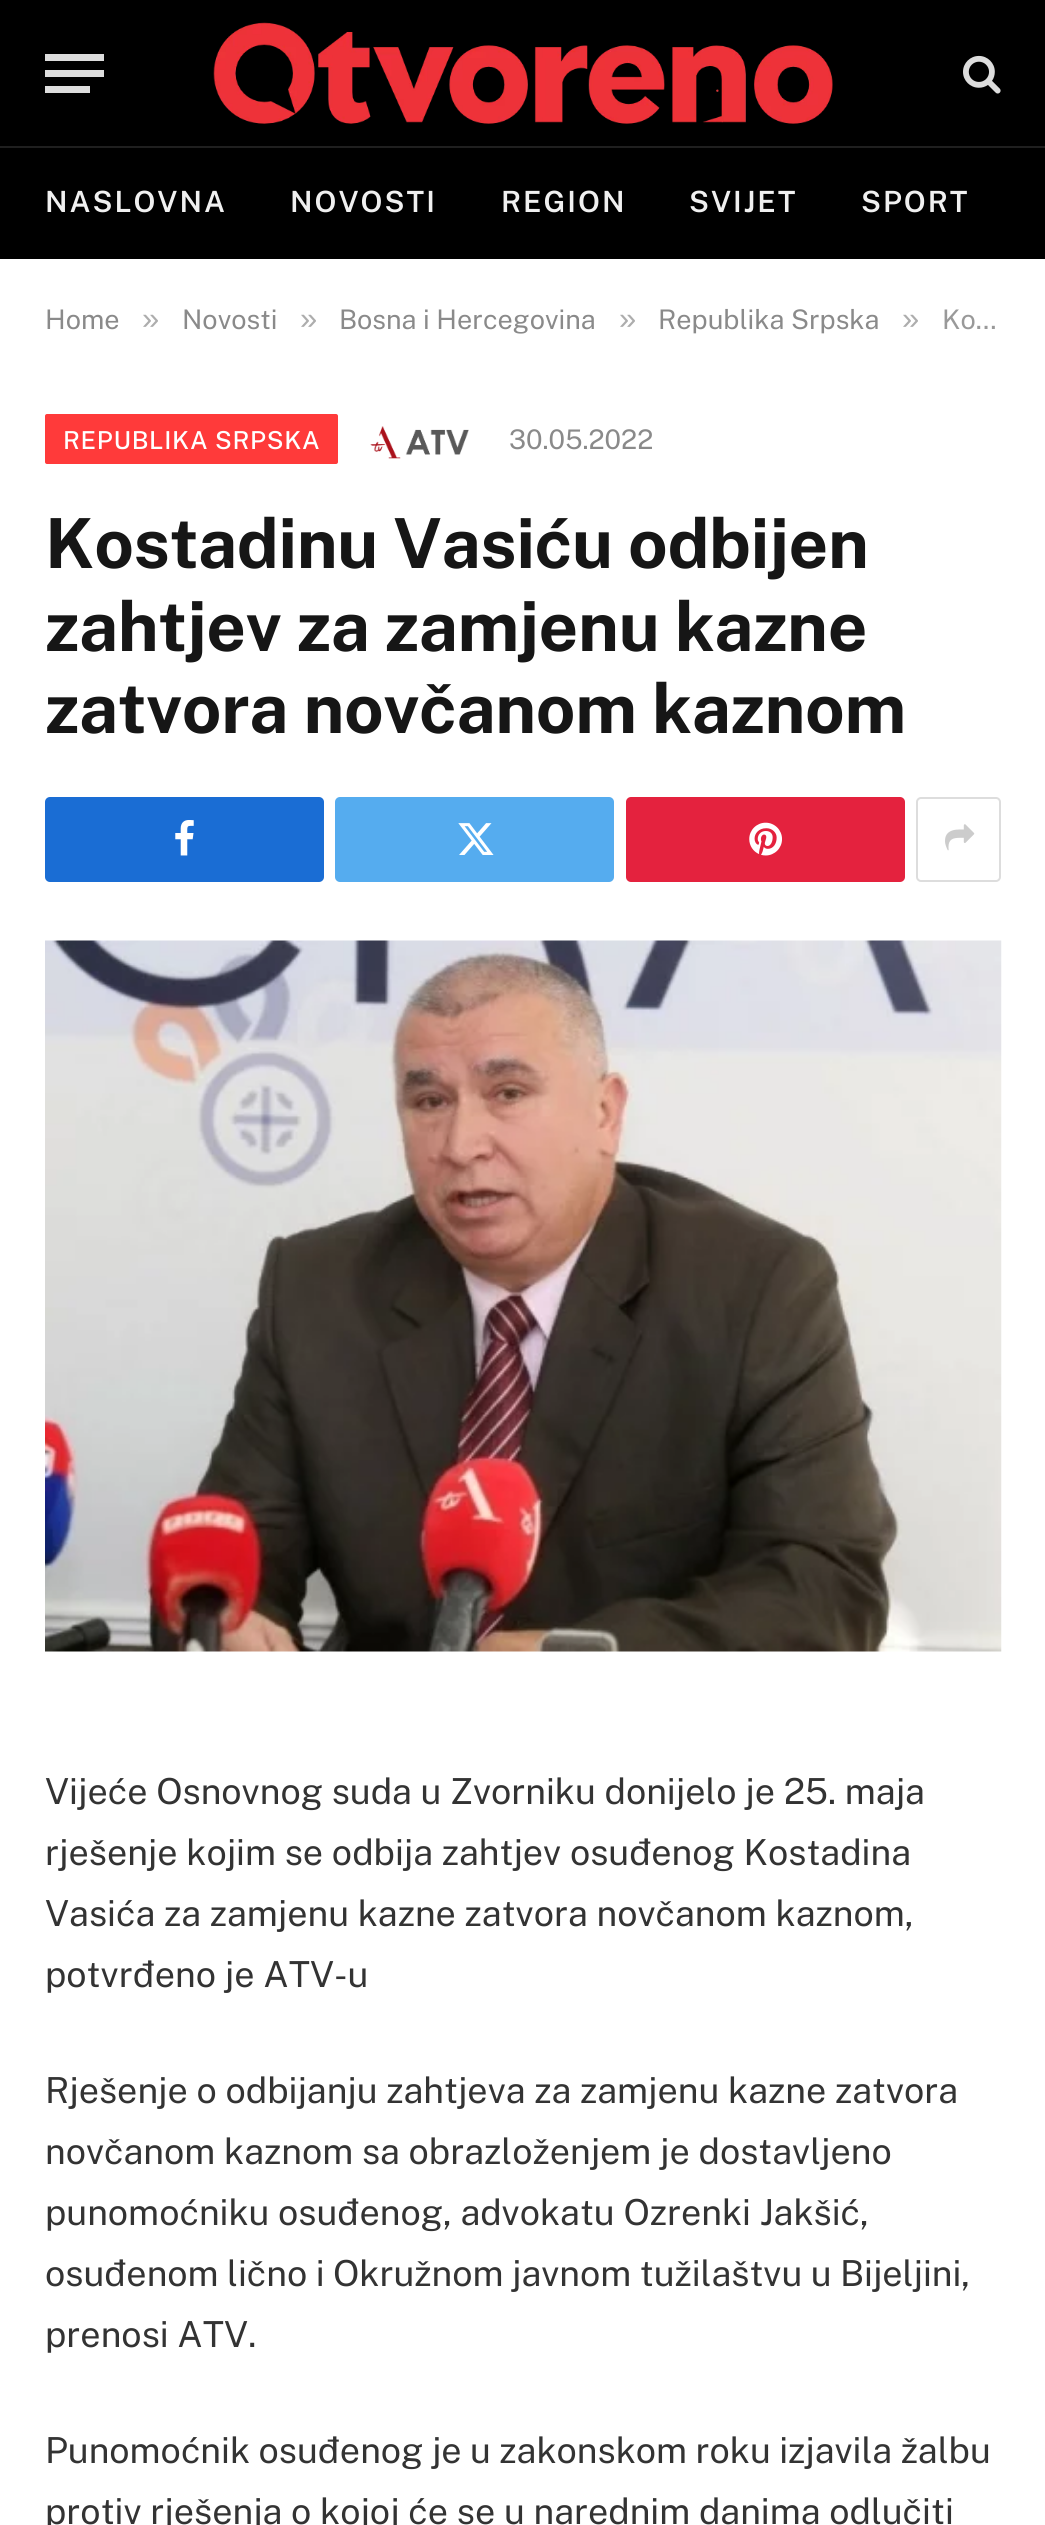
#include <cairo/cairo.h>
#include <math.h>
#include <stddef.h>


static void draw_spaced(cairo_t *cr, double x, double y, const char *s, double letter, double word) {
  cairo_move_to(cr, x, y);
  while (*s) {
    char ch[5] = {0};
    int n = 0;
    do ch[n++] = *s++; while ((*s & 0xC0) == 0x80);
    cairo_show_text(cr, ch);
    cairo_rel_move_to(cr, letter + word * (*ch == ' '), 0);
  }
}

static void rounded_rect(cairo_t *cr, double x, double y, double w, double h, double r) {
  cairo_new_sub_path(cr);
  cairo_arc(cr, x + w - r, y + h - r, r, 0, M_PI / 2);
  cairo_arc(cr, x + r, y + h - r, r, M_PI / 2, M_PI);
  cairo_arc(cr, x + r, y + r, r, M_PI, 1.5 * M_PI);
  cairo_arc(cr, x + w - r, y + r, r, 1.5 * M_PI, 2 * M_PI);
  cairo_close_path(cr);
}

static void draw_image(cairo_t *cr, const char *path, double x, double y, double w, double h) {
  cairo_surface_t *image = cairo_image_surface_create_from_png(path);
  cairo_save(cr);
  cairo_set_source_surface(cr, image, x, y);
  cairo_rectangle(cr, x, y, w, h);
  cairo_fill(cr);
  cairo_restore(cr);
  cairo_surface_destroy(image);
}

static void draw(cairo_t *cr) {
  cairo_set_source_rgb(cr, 1, 1, 1);
  cairo_paint(cr);
  cairo_set_source_rgb(cr, 0, 0, 0);
  cairo_rectangle(cr, 0, 0, 1045, 146);
  cairo_fill(cr);
  cairo_set_source_rgb(cr, 221 / 255.0, 221 / 255.0, 221 / 255.0);
  cairo_rectangle(cr, 45, 86, 45, 7);
  cairo_fill(cr);
  cairo_rectangle(cr, 45, 54, 59, 7);
  cairo_fill(cr);
  cairo_rectangle(cr, 45, 70, 59, 7);
  cairo_fill(cr);
  draw_image(cr, "images/1.png", 213, 22, 620, 102);
  draw_image(cr, "images/2.png", 963, 55, 38, 39);
  cairo_set_source_rgb(cr, 0, 0, 0);
  cairo_rectangle(cr, 0, 148, 1045, 111);
  cairo_fill(cr);
  cairo_set_source_rgb(cr, 31 / 255.0, 31 / 255.0, 31 / 255.0);
  cairo_rectangle(cr, 0, 146, 1045, 2);
  cairo_fill(cr);
  cairo_set_source_rgb(cr, 1, 58 / 255.0, 58 / 255.0);
  rounded_rect(cr, 45, 414, 293, 50, 2);
  cairo_fill(cr);
  draw_image(cr, "images/3.png", 370, 426, 99, 33);
  cairo_set_source_rgb(cr, 26 / 255.0, 109 / 255.0, 212 / 255.0);
  rounded_rect(cr, 45, 797, 279, 85, 5);
  cairo_fill(cr);
  draw_image(cr, "images/4.png", 175, 820, 19, 36);
  cairo_set_source_rgb(cr, 85 / 255.0, 172 / 255.0, 239 / 255.0);
  rounded_rect(cr, 335, 797, 279, 85, 5);
  cairo_fill(cr);
  draw_image(cr, "images/5.png", 458, 823, 36, 32);
  cairo_set_source_rgb(cr, 228 / 255.0, 34 / 255.0, 62 / 255.0);
  rounded_rect(cr, 626, 797, 279, 85, 5);
  cairo_fill(cr);
  draw_image(cr, "images/6.png", 749, 822, 33, 34);
  rounded_rect(cr, 917, 798, 83, 83, 4);
  cairo_set_source_rgb(cr, 221 / 255.0, 221 / 255.0, 221 / 255.0);
  cairo_stroke(cr);
  draw_image(cr, "images/7.png", 945, 824, 30, 27);
  draw_image(cr, "images/8.png", 45, 940, 957, 712);
  cairo_select_font_face(cr, "Public Sans SemiBold", CAIRO_FONT_SLANT_NORMAL, CAIRO_FONT_WEIGHT_NORMAL);
  cairo_set_font_size(cr, 29.25);
  cairo_set_source_rgb(cr, 240 / 255.0, 240 / 255.0, 240 / 255.0);
  draw_spaced(cr, 45, 212, "NASLOVNA", 2, 0);
  draw_spaced(cr, 290, 212, "NOVOSTI", 2, 0);
  draw_spaced(cr, 501, 212, "REGION", 2, 0);
  draw_spaced(cr, 689, 212, "SVIJET", 2, 0);
  draw_spaced(cr, 861, 212, "SPORT", 2, 0);
  cairo_select_font_face(cr, "Public Sans", CAIRO_FONT_SLANT_NORMAL, CAIRO_FONT_WEIGHT_NORMAL);
  cairo_set_font_size(cr, 27);
  cairo_set_source_rgb(cr, 138 / 255.0, 138 / 255.0, 138 / 255.0);
  cairo_move_to(cr, 45, 329);
  cairo_show_text(cr, "Home");
  cairo_select_font_face(cr, "Liberation Sans", CAIRO_FONT_SLANT_NORMAL, CAIRO_FONT_WEIGHT_NORMAL);
  cairo_set_font_size(cr, 31);
  cairo_set_source_rgb(cr, 173 / 255.0, 173 / 255.0, 173 / 255.0);
  cairo_move_to(cr, 142, 329);
  cairo_show_text(cr, "»");
  cairo_select_font_face(cr, "Public Sans", CAIRO_FONT_SLANT_NORMAL, CAIRO_FONT_WEIGHT_NORMAL);
  cairo_set_font_size(cr, 27);
  cairo_set_source_rgb(cr, 138 / 255.0, 138 / 255.0, 138 / 255.0);
  cairo_move_to(cr, 182, 329);
  cairo_show_text(cr, "Novosti");
  cairo_select_font_face(cr, "Liberation Sans", CAIRO_FONT_SLANT_NORMAL, CAIRO_FONT_WEIGHT_NORMAL);
  cairo_set_font_size(cr, 31);
  cairo_set_source_rgb(cr, 173 / 255.0, 173 / 255.0, 173 / 255.0);
  cairo_move_to(cr, 300, 329);
  cairo_show_text(cr, "»");
  cairo_select_font_face(cr, "Public Sans", CAIRO_FONT_SLANT_NORMAL, CAIRO_FONT_WEIGHT_NORMAL);
  cairo_set_font_size(cr, 27);
  cairo_set_source_rgb(cr, 138 / 255.0, 138 / 255.0, 138 / 255.0);
  cairo_move_to(cr, 339, 329);
  cairo_show_text(cr, "Bosna i Hercegovina");
  cairo_select_font_face(cr, "Liberation Sans", CAIRO_FONT_SLANT_NORMAL, CAIRO_FONT_WEIGHT_NORMAL);
  cairo_set_font_size(cr, 31);
  cairo_set_source_rgb(cr, 173 / 255.0, 173 / 255.0, 173 / 255.0);
  cairo_move_to(cr, 619, 329);
  cairo_show_text(cr, "»");
  cairo_select_font_face(cr, "Public Sans", CAIRO_FONT_SLANT_NORMAL, CAIRO_FONT_WEIGHT_NORMAL);
  cairo_set_font_size(cr, 27);
  cairo_set_source_rgb(cr, 138 / 255.0, 138 / 255.0, 138 / 255.0);
  cairo_move_to(cr, 658, 329);
  cairo_show_text(cr, "Republika Srpska");
  cairo_select_font_face(cr, "Liberation Sans", CAIRO_FONT_SLANT_NORMAL, CAIRO_FONT_WEIGHT_NORMAL);
  cairo_set_font_size(cr, 31);
  cairo_set_source_rgb(cr, 173 / 255.0, 173 / 255.0, 173 / 255.0);
  cairo_move_to(cr, 902, 329);
  cairo_show_text(cr, "»");
  cairo_select_font_face(cr, "Public Sans", CAIRO_FONT_SLANT_NORMAL, CAIRO_FONT_WEIGHT_NORMAL);
  cairo_set_font_size(cr, 27);
  cairo_set_source_rgb(cr, 153 / 255.0, 153 / 255.0, 153 / 255.0);
  cairo_move_to(cr, 942, 329);
  cairo_show_text(cr, "Ko…");
  cairo_select_font_face(cr, "Public Sans Medium", CAIRO_FONT_SLANT_NORMAL, CAIRO_FONT_WEIGHT_NORMAL);
  cairo_set_font_size(cr, 24.75);
  cairo_set_source_rgb(cr, 1, 1, 1);
  draw_spaced(cr, 63, 449, "REPUBLIKA SRPSKA", 0.75, 0);
  cairo_select_font_face(cr, "Public Sans", CAIRO_FONT_SLANT_NORMAL, CAIRO_FONT_WEIGHT_NORMAL);
  cairo_set_font_size(cr, 27);
  cairo_set_source_rgb(cr, 138 / 255.0, 138 / 255.0, 138 / 255.0);
  cairo_move_to(cr, 509, 449);
  cairo_show_text(cr, "30.05.2022");
  cairo_select_font_face(cr, "Public Sans", CAIRO_FONT_SLANT_NORMAL, CAIRO_FONT_WEIGHT_BOLD);
  cairo_set_font_size(cr, 69);
  cairo_set_source_rgb(cr, 22 / 255.0, 22 / 255.0, 22 / 255.0);
  draw_spaced(cr, 45, 568, "Kostadinu Vasiću odbijen", -0.3, 0);
  draw_spaced(cr, 45, 651, "zahtjev za zamjenu kazne", -0.3, 0);
  draw_spaced(cr, 45, 733, "zatvora novčanom kaznom", -0.3, 0);
  cairo_select_font_face(cr, "Public Sans", CAIRO_FONT_SLANT_NORMAL, CAIRO_FONT_WEIGHT_NORMAL);
  cairo_set_font_size(cr, 35.85);
  cairo_set_source_rgb(cr, 51 / 255.0, 51 / 255.0, 51 / 255.0);
  cairo_move_to(cr, 45, 1804);
  cairo_show_text(cr, "Vijeće Osnovnog suda u Zvorniku donijelo je 25. maja");
  cairo_move_to(cr, 45, 1865);
  cairo_show_text(cr, "rješenje kojim se odbija zahtjev osuđenog Kostadina");
  cairo_move_to(cr, 45, 1926);
  cairo_show_text(cr, "Vasića za zamjenu kazne zatvora novčanom kaznom,");
  cairo_move_to(cr, 45, 1987);
  cairo_show_text(cr, "potvrđeno je ATV-u");
  cairo_move_to(cr, 45, 2103);
  cairo_show_text(cr, "Rješenje o odbijanju zahtjeva za zamjenu kazne zatvora");
  cairo_move_to(cr, 45, 2164);
  cairo_show_text(cr, "novčanom kaznom sa obrazloženjem je dostavljeno");
  cairo_move_to(cr, 45, 2225);
  cairo_show_text(cr, "punomoćniku osuđenog, advokatu Ozrenki Jakšić,");
  draw_spaced(cr, 45, 2286, "osuđenom lično i Okružnom javnom tužilaštvu u Bijeljini,", 0, -0.25);
  cairo_move_to(cr, 45, 2347);
  cairo_show_text(cr, "prenosi ATV.");
  draw_spaced(cr, 45, 2463, "Punomoćnik osuđenog je u zakonskom roku izjavila žalbu", 0, -0.25);
  cairo_move_to(cr, 45, 2524);
  cairo_show_text(cr, "protiv rješenja o kojoj će se u narednim danima odlučiti");
}

int main(void) {
  cairo_surface_t *surface = cairo_image_surface_create(CAIRO_FORMAT_RGB24, 1045, 2525);
  cairo_t *cr = cairo_create(surface);
  cairo_font_options_t *options = cairo_font_options_create();
  cairo_font_options_set_hint_metrics(options, CAIRO_HINT_METRICS_OFF);
  cairo_font_options_set_hint_style(options, CAIRO_HINT_STYLE_NONE);
  cairo_set_font_options(cr, options);
  cairo_set_miter_limit(cr, 4);
  draw(cr);
  cairo_surface_write_to_png(surface, "out.png");
  cairo_font_options_destroy(options);
  cairo_destroy(cr);
  cairo_surface_destroy(surface);
  return 0;
}
